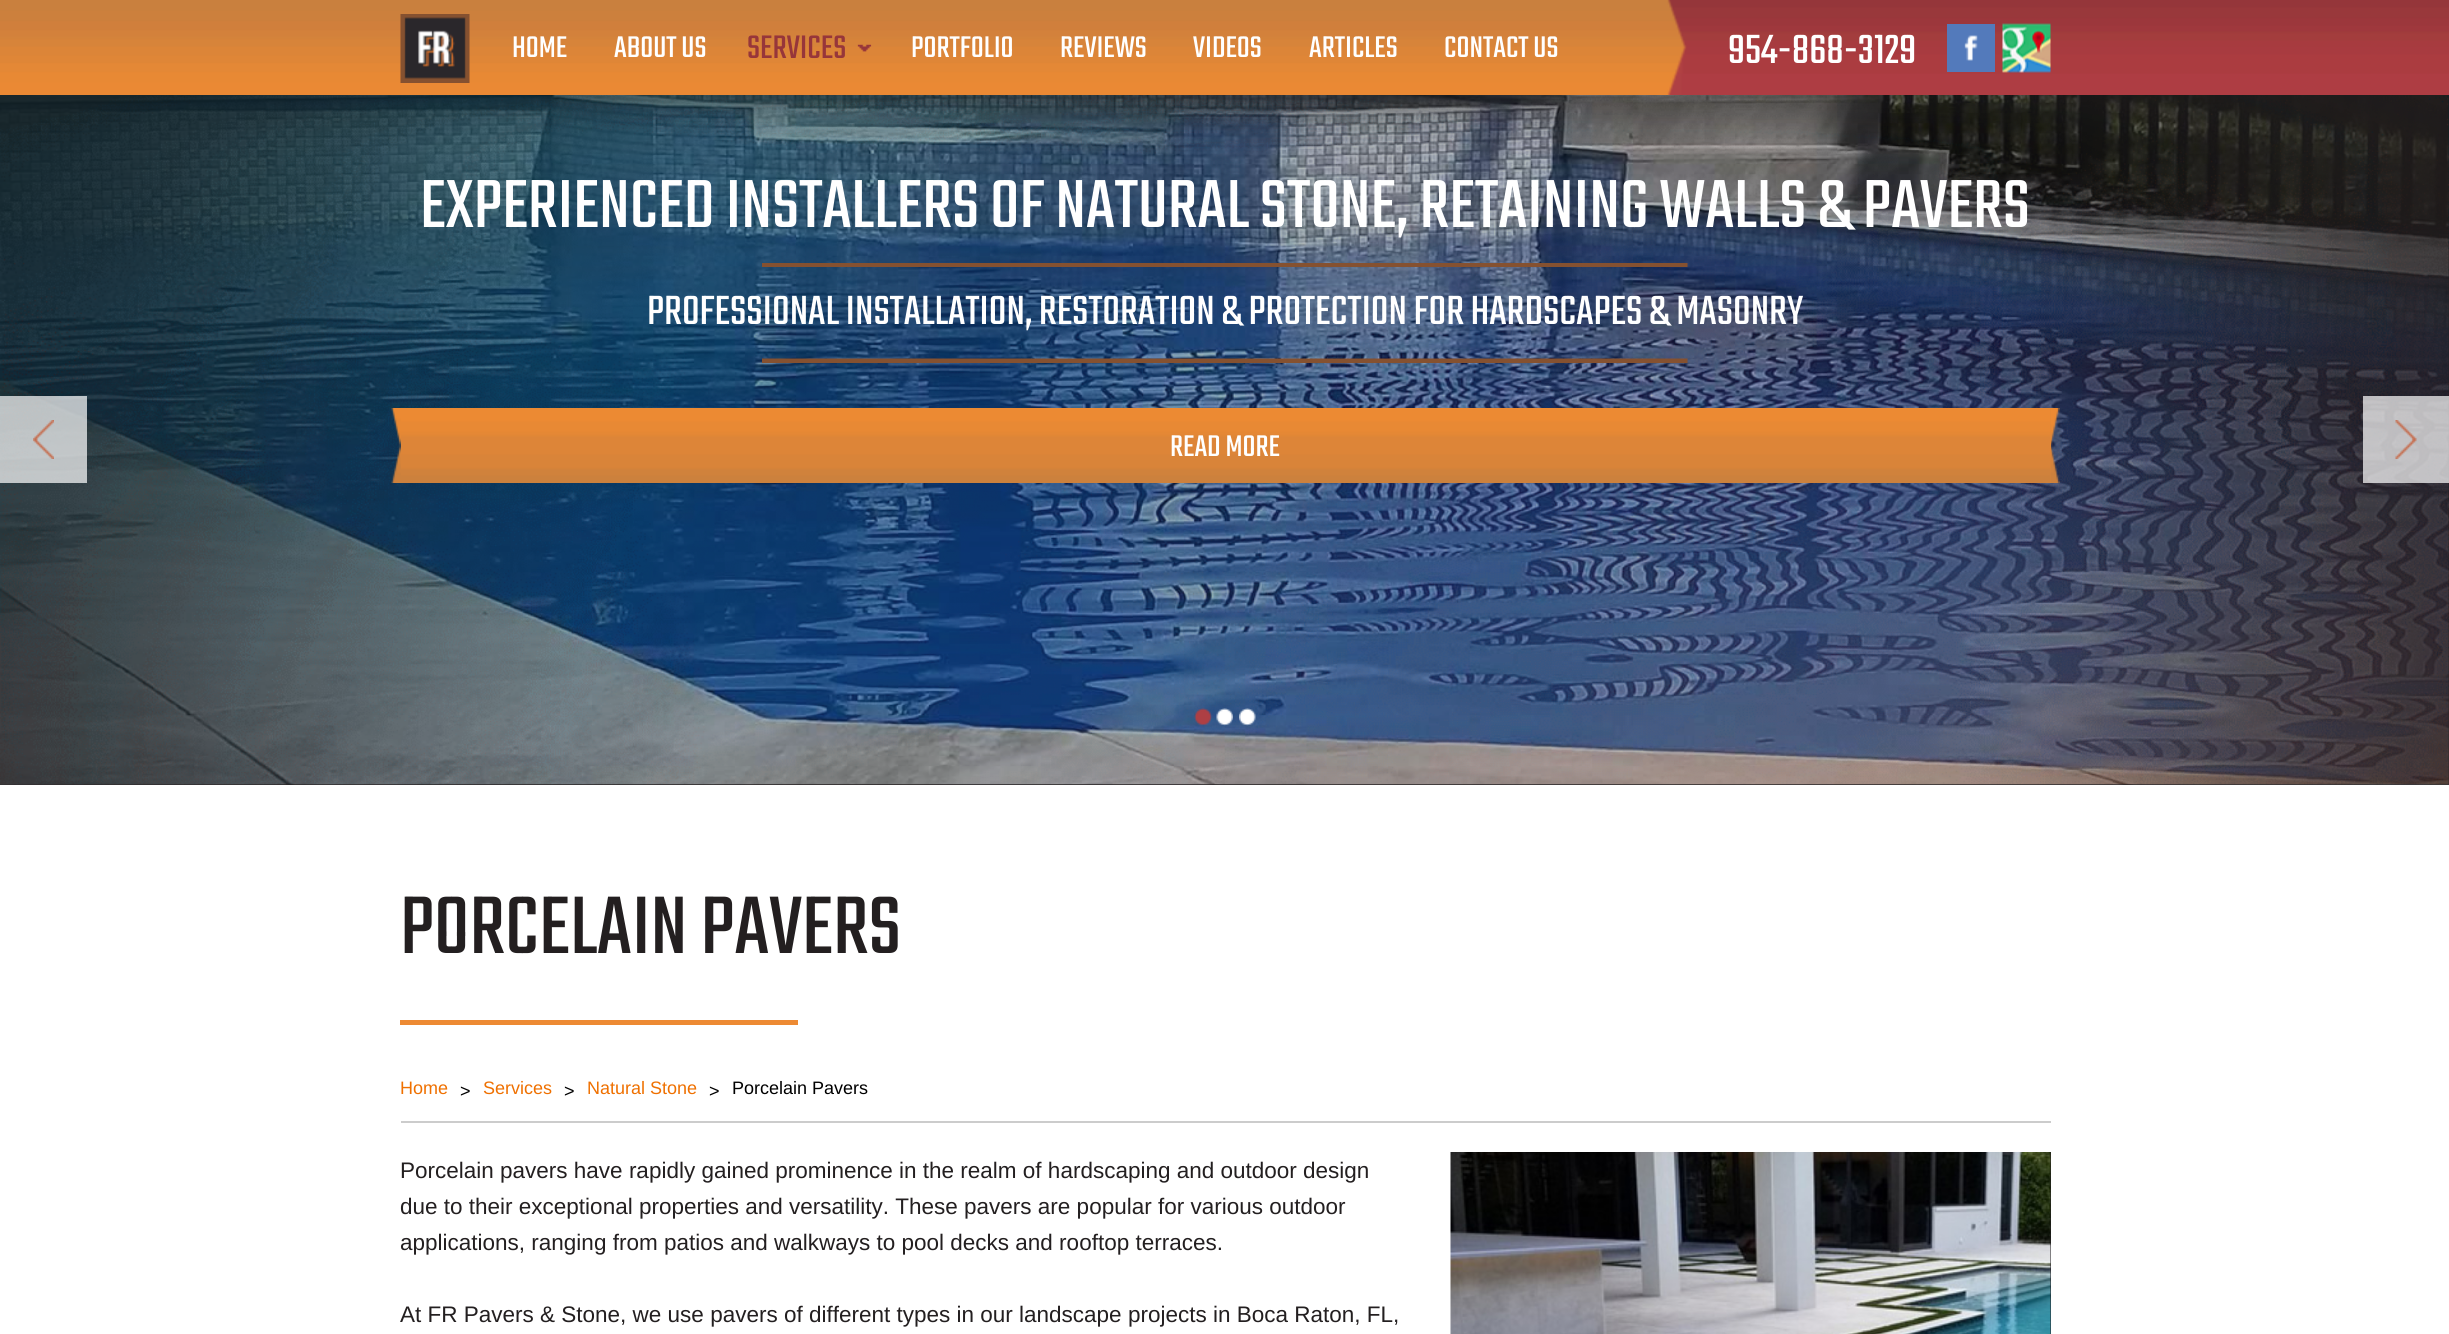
#include <cairo/cairo.h>
#include <math.h>
#include <stddef.h>


static void draw_image(cairo_t *cr, const char *path, double x, double y, double w, double h) {
  cairo_surface_t *image = cairo_image_surface_create_from_png(path);
  cairo_save(cr);
  cairo_set_source_surface(cr, image, x, y);
  cairo_rectangle(cr, x, y, w, h);
  cairo_fill(cr);
  cairo_restore(cr);
  cairo_surface_destroy(image);
}

static void draw(cairo_t *cr) {
  cairo_set_source_rgb(cr, 1, 1, 1);
  cairo_paint(cr);
  draw_image(cr, "images/1.png", 0, 0, 2449, 95);
  draw_image(cr, "images/2.png", 400, 14, 70, 69);
  draw_image(cr, "images/3.png", 857, 44, 15, 8);
  cairo_set_source_rgb(cr, 83 / 255.0, 122 / 255.0, 187 / 255.0);
  cairo_rectangle(cr, 1947, 24, 48, 48);
  cairo_fill(cr);
  draw_image(cr, "images/4.png", 2002, 23, 49, 50);
  draw_image(cr, "images/5.png", 1964, 35, 14, 26);
  cairo_set_source_rgb(cr, 35 / 255.0, 31 / 255.0, 32 / 255.0);
  cairo_rectangle(cr, 0, 784, 2449, 1);
  cairo_fill(cr);
  draw_image(cr, "images/6.png", 0, 95, 2449, 690);
  draw_image(cr, "images/7.png", 0, 95, 2449, 690);
  cairo_set_source_rgba(cr, 1, 1, 1, 0.7);
  cairo_rectangle(cr, 0, 396, 87, 87);
  cairo_fill(cr);
  draw_image(cr, "images/8.png", 33, 420, 21, 39);
  draw_image(cr, "images/9.png", 762, 263, 926, 100);
  cairo_set_source_rgb(cr, 221 / 255.0, 133 / 255.0, 56 / 255.0);
  cairo_rectangle(cr, 401, 408, 1650, 75);
  cairo_fill(cr);
  draw_image(cr, "images/10.png", 401, 408, 1650, 75);
  draw_image(cr, "images/11.png", 391, 408, 10, 75);
  draw_image(cr, "images/12.png", 2050, 408, 10, 75);
  cairo_set_source_rgba(cr, 1, 1, 1, 0.7);
  cairo_rectangle(cr, 2363, 396, 86, 87);
  cairo_fill(cr);
  draw_image(cr, "images/13.png", 2395, 420, 22, 39);
  draw_image(cr, "images/14.png", 1194, 708, 18, 18);
  draw_image(cr, "images/15.png", 1216, 708, 17, 18);
  draw_image(cr, "images/16.png", 1239, 708, 17, 18);
  cairo_set_source_rgb(cr, 237 / 255.0, 138 / 255.0, 51 / 255.0);
  cairo_rectangle(cr, 400, 1020, 398, 5);
  cairo_fill(cr);
  cairo_set_source_rgb(cr, 204 / 255.0, 204 / 255.0, 204 / 255.0);
  cairo_rectangle(cr, 401, 1121, 1650, 2);
  cairo_fill(cr);
  cairo_set_source_rgb(cr, 35 / 255.0, 31 / 255.0, 32 / 255.0);
  cairo_rectangle(cr, 2050, 1152, 1, 182);
  cairo_fill(cr);
  draw_image(cr, "images/17.png", 1450, 1152, 601, 182);
  cairo_select_font_face(cr, "Teko Light", CAIRO_FONT_SLANT_NORMAL, CAIRO_FONT_WEIGHT_NORMAL);
  cairo_set_font_size(cr, 33);
  cairo_set_source_rgb(cr, 1, 1, 1);
  cairo_move_to(cr, 512, 57);
  cairo_show_text(cr, "HOME");
  cairo_move_to(cr, 614, 57);
  cairo_show_text(cr, "ABOUT US");
  cairo_set_font_size(cr, 36);
  cairo_set_source_rgb(cr, 151 / 255.0, 54 / 255.0, 58 / 255.0);
  cairo_move_to(cr, 747, 58);
  cairo_show_text(cr, "SERVICES");
  cairo_set_font_size(cr, 33);
  cairo_set_source_rgb(cr, 1, 1, 1);
  cairo_move_to(cr, 911, 57);
  cairo_show_text(cr, "PORTFOLIO");
  cairo_move_to(cr, 1060, 57);
  cairo_show_text(cr, "REVIEWS");
  cairo_move_to(cr, 1193, 57);
  cairo_show_text(cr, "VIDEOS");
  cairo_move_to(cr, 1309, 57);
  cairo_show_text(cr, "ARTICLES");
  cairo_move_to(cr, 1444, 57);
  cairo_show_text(cr, "CONTACT US");
  cairo_set_font_size(cr, 45);
  cairo_move_to(cr, 1728, 63);
  cairo_show_text(cr, "954-868-3129");
  cairo_set_font_size(cr, 75);
  cairo_move_to(cr, 420, 227);
  cairo_show_text(cr, "EXPERIENCED INSTALLERS OF NATURAL STONE, RETAINING WALLS & PAVERS");
  cairo_set_font_size(cr, 45);
  cairo_move_to(cr, 647, 324);
  cairo_show_text(cr, "PROFESSIONAL INSTALLATION, RESTORATION & PROTECTION FOR HARDSCAPES & MASONRY");
  cairo_set_font_size(cr, 33);
  cairo_move_to(cr, 1170, 456);
  cairo_show_text(cr, "READ MORE");
  cairo_set_font_size(cr, 90);
  cairo_set_source_rgb(cr, 35 / 255.0, 31 / 255.0, 32 / 255.0);
  cairo_move_to(cr, 400, 953);
  cairo_show_text(cr, "PORCELAIN PAVERS");
  cairo_select_font_face(cr, "Liberation Sans", CAIRO_FONT_SLANT_NORMAL, CAIRO_FONT_WEIGHT_NORMAL);
  cairo_set_font_size(cr, 18);
  cairo_set_source_rgb(cr, 239 / 255.0, 112 / 255.0, 0);
  cairo_move_to(cr, 400, 1094);
  cairo_show_text(cr, "Home");
  cairo_set_source_rgb(cr, 0, 0, 0);
  cairo_move_to(cr, 460, 1097);
  cairo_show_text(cr, ">");
  cairo_set_source_rgb(cr, 239 / 255.0, 112 / 255.0, 0);
  cairo_move_to(cr, 483, 1094);
  cairo_show_text(cr, "Services");
  cairo_set_source_rgb(cr, 0, 0, 0);
  cairo_move_to(cr, 564, 1097);
  cairo_show_text(cr, ">");
  cairo_set_source_rgb(cr, 239 / 255.0, 112 / 255.0, 0);
  cairo_move_to(cr, 587, 1094);
  cairo_show_text(cr, "Natural Stone");
  cairo_set_source_rgb(cr, 0, 0, 0);
  cairo_move_to(cr, 709, 1097);
  cairo_show_text(cr, ">");
  cairo_move_to(cr, 732, 1094);
  cairo_show_text(cr, "Porcelain Pavers");
  cairo_set_font_size(cr, 22.5);
  cairo_set_source_rgb(cr, 35 / 255.0, 31 / 255.0, 32 / 255.0);
  cairo_move_to(cr, 400, 1178);
  cairo_show_text(cr, "Porcelain pavers have rapidly gained prominence in the realm of hardscaping and outdoor design");
  cairo_move_to(cr, 400, 1214);
  cairo_show_text(cr, "due to their exceptional properties and versatility. These pavers are popular for various outdoor");
  cairo_move_to(cr, 400, 1250);
  cairo_show_text(cr, "applications, ranging from patios and walkways to pool decks and rooftop terraces.");
  cairo_move_to(cr, 400, 1322);
  cairo_show_text(cr, "At FR Pavers & Stone, we use pavers of different types in our landscape projects in Boca Raton, FL,");
}

int main(void) {
  cairo_surface_t *surface = cairo_image_surface_create(CAIRO_FORMAT_RGB24, 2449, 1334);
  cairo_t *cr = cairo_create(surface);
  cairo_font_options_t *options = cairo_font_options_create();
  cairo_font_options_set_hint_metrics(options, CAIRO_HINT_METRICS_OFF);
  cairo_font_options_set_hint_style(options, CAIRO_HINT_STYLE_NONE);
  cairo_set_font_options(cr, options);
  cairo_set_miter_limit(cr, 4);
  draw(cr);
  cairo_surface_write_to_png(surface, "out.png");
  cairo_font_options_destroy(options);
  cairo_destroy(cr);
  cairo_surface_destroy(surface);
  return 0;
}
